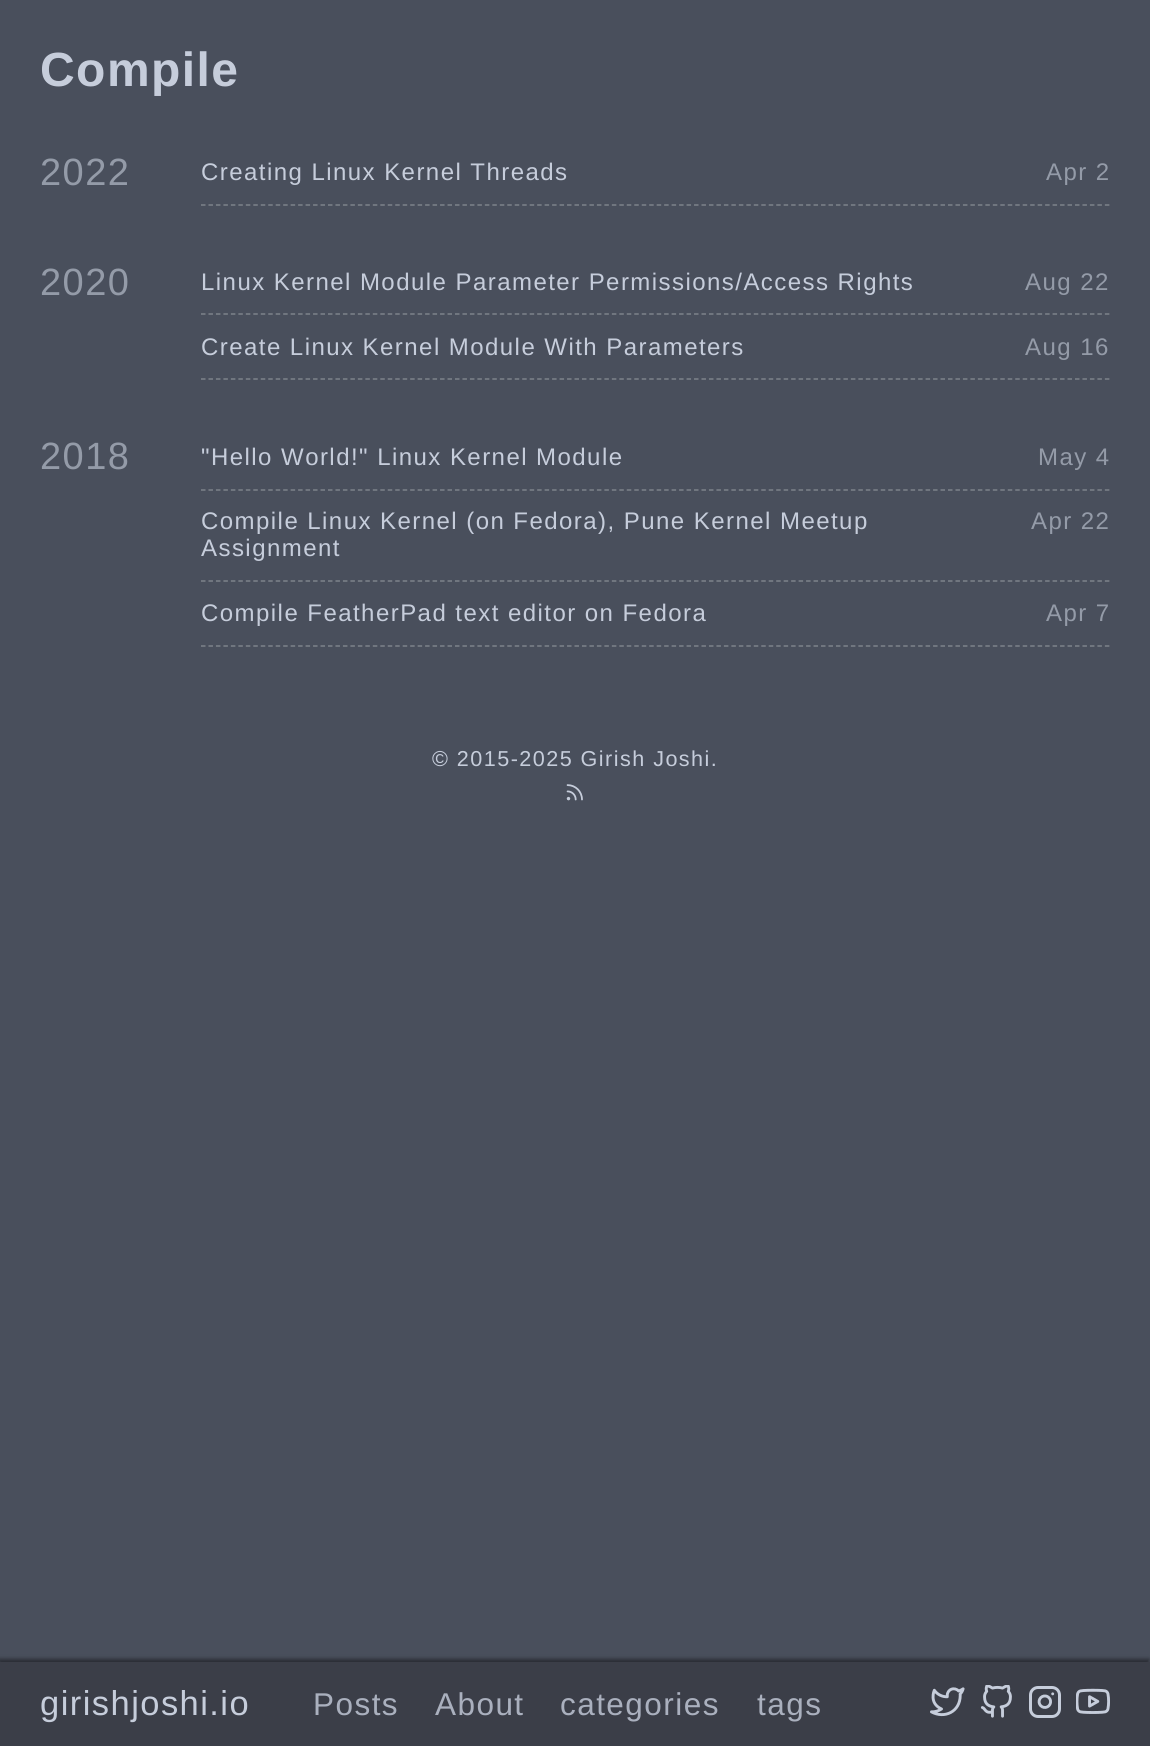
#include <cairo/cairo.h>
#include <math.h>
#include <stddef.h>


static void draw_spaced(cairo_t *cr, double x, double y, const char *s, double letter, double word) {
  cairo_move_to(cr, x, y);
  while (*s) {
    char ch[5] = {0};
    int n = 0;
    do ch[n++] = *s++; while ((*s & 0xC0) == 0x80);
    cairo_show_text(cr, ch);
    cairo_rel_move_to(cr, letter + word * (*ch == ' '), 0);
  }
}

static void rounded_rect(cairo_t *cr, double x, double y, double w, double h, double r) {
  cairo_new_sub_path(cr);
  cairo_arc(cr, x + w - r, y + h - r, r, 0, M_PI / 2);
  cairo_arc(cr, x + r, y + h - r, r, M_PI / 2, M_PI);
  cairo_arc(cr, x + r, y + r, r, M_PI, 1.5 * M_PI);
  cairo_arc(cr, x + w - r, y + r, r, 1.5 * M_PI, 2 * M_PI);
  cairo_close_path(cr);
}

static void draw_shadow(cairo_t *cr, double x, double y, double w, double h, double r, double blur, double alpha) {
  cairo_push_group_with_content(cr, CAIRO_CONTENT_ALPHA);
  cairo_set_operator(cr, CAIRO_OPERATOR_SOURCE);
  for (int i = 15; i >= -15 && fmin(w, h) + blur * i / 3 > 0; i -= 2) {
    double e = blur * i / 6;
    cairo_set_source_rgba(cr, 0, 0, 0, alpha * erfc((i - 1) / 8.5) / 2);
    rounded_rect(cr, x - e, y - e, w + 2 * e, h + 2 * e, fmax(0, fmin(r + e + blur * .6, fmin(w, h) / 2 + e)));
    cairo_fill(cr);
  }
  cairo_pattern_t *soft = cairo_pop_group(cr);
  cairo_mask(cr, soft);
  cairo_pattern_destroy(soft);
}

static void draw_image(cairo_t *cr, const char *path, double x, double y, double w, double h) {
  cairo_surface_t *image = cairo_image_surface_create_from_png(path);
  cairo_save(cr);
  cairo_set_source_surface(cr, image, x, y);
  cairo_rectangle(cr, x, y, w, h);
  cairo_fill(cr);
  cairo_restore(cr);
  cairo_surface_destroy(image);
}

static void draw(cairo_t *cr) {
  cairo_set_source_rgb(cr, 73 / 255.0, 79 / 255.0, 92 / 255.0);
  cairo_paint(cr);
  cairo_new_path(cr);
  cairo_move_to(cr, 201, 205);
  cairo_line_to(cr, 1110, 205);
  cairo_set_source_rgb(cr, 125 / 255.0, 130 / 255.0, 138 / 255.0);
  cairo_set_line_width(cr, 1.5);
  cairo_set_dash(cr, (double[]){4.5, 2.97}, 2, 0);
  cairo_stroke(cr);
  cairo_new_path(cr);
  cairo_move_to(cr, 201, 314);
  cairo_line_to(cr, 1110, 314);
  cairo_stroke(cr);
  cairo_new_path(cr);
  cairo_move_to(cr, 201, 379);
  cairo_line_to(cr, 1110, 379);
  cairo_stroke(cr);
  cairo_new_path(cr);
  cairo_move_to(cr, 201, 490);
  cairo_line_to(cr, 1110, 490);
  cairo_stroke(cr);
  cairo_new_path(cr);
  cairo_move_to(cr, 201, 581);
  cairo_line_to(cr, 1110, 581);
  cairo_stroke(cr);
  cairo_new_path(cr);
  cairo_move_to(cr, 201, 646);
  cairo_line_to(cr, 1110, 646);
  cairo_stroke(cr);
  draw_image(cr, "images/1.png", 566, 784, 17, 17);
  cairo_set_source_rgb(cr, 0, 0, 0);
  draw_shadow(cr, -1, 1659, 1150, 84, 0, 2, 0.45);
  cairo_set_source_rgb(cr, 59 / 255.0, 62 / 255.0, 72 / 255.0);
  cairo_rectangle(cr, 0, 1662, 1150, 84);
  cairo_fill(cr);
  draw_image(cr, "images/2.png", 930, 1687, 35, 30);
  draw_image(cr, "images/3.png", 980, 1685, 32, 33);
  draw_image(cr, "images/4.png", 1029, 1686, 32, 32);
  draw_image(cr, "images/5.png", 1076, 1688, 34, 26);
  cairo_select_font_face(cr, "Liberation Sans", CAIRO_FONT_SLANT_NORMAL, CAIRO_FONT_WEIGHT_BOLD);
  cairo_set_font_size(cr, 48);
  cairo_set_source_rgb(cr, 198 / 255.0, 205 / 255.0, 219 / 255.0);
  draw_spaced(cr, 40, 86, "Compile", 1.45, 0);
  cairo_select_font_face(cr, "Liberation Sans", CAIRO_FONT_SLANT_NORMAL, CAIRO_FONT_WEIGHT_NORMAL);
  cairo_set_font_size(cr, 38);
  cairo_set_source_rgb(cr, 148 / 255.0, 155 / 255.0, 168 / 255.0);
  draw_spaced(cr, 40, 185, "2022", 1.45, 0);
  cairo_set_font_size(cr, 24);
  cairo_set_source_rgb(cr, 198 / 255.0, 205 / 255.0, 219 / 255.0);
  draw_spaced(cr, 201, 180, "Creating Linux Kernel Threads", 1.45, 0);
  cairo_set_source_rgb(cr, 148 / 255.0, 155 / 255.0, 168 / 255.0);
  draw_spaced(cr, 1046, 180, "Apr 2", 1.45, 0);
  cairo_set_font_size(cr, 38);
  draw_spaced(cr, 40, 295, "2020", 1.45, 0);
  cairo_set_font_size(cr, 24);
  cairo_set_source_rgb(cr, 198 / 255.0, 205 / 255.0, 219 / 255.0);
  draw_spaced(cr, 201, 290, "Linux Kernel Module Parameter Permissions/Access Rights", 1.45, 0);
  cairo_set_source_rgb(cr, 148 / 255.0, 155 / 255.0, 168 / 255.0);
  draw_spaced(cr, 1025, 290, "Aug 22", 1.45, 0);
  cairo_set_source_rgb(cr, 198 / 255.0, 205 / 255.0, 219 / 255.0);
  draw_spaced(cr, 201, 355, "Create Linux Kernel Module With Parameters", 1.45, 0);
  cairo_set_source_rgb(cr, 148 / 255.0, 155 / 255.0, 168 / 255.0);
  draw_spaced(cr, 1025, 355, "Aug 16", 1.45, 0);
  cairo_set_font_size(cr, 38);
  draw_spaced(cr, 40, 469, "2018", 1.45, 0);
  cairo_set_font_size(cr, 24);
  cairo_set_source_rgb(cr, 198 / 255.0, 205 / 255.0, 219 / 255.0);
  draw_spaced(cr, 201, 465, "\"Hello World!\" Linux Kernel Module", 1.45, 0);
  cairo_set_source_rgb(cr, 148 / 255.0, 155 / 255.0, 168 / 255.0);
  draw_spaced(cr, 1038, 465, "May 4", 1.45, 0);
  cairo_set_source_rgb(cr, 198 / 255.0, 205 / 255.0, 219 / 255.0);
  draw_spaced(cr, 201, 529, "Compile Linux Kernel (on Fedora), Pune Kernel Meetup", 1.45, 0);
  draw_spaced(cr, 201, 556, "Assignment", 1.45, 0);
  cairo_set_source_rgb(cr, 148 / 255.0, 155 / 255.0, 168 / 255.0);
  draw_spaced(cr, 1031, 529, "Apr 22", 1.45, 0);
  cairo_set_source_rgb(cr, 198 / 255.0, 205 / 255.0, 219 / 255.0);
  draw_spaced(cr, 201, 621, "Compile FeatherPad text editor on Fedora", 1.45, 0);
  cairo_set_source_rgb(cr, 148 / 255.0, 155 / 255.0, 168 / 255.0);
  draw_spaced(cr, 1046, 621, "Apr 7", 1.45, 0);
  cairo_set_font_size(cr, 21.6);
  cairo_set_source_rgb(cr, 198 / 255.0, 205 / 255.0, 219 / 255.0);
  draw_spaced(cr, 432, 766, "© 2015-2025 Girish Joshi.", 1.45, 0);
  cairo_set_font_size(cr, 34.5);
  draw_spaced(cr, 40, 1715, "girishjoshi.io", 1.45, 0);
  cairo_set_font_size(cr, 31.5);
  cairo_set_source_rgb(cr, 170 / 255.0, 176 / 255.0, 190 / 255.0);
  draw_spaced(cr, 313, 1715, "Posts", 1.45, 0);
  draw_spaced(cr, 435, 1715, "About", 1.45, 0);
  draw_spaced(cr, 560, 1715, "categories", 1.45, 0);
  draw_spaced(cr, 757, 1715, "tags", 1.45, 0);
}

int main(void) {
  cairo_surface_t *surface = cairo_image_surface_create(CAIRO_FORMAT_RGB24, 1150, 1746);
  cairo_t *cr = cairo_create(surface);
  cairo_font_options_t *options = cairo_font_options_create();
  cairo_font_options_set_hint_metrics(options, CAIRO_HINT_METRICS_OFF);
  cairo_font_options_set_hint_style(options, CAIRO_HINT_STYLE_NONE);
  cairo_set_font_options(cr, options);
  cairo_set_miter_limit(cr, 4);
  draw(cr);
  cairo_surface_write_to_png(surface, "out.png");
  cairo_font_options_destroy(options);
  cairo_destroy(cr);
  cairo_surface_destroy(surface);
  return 0;
}
